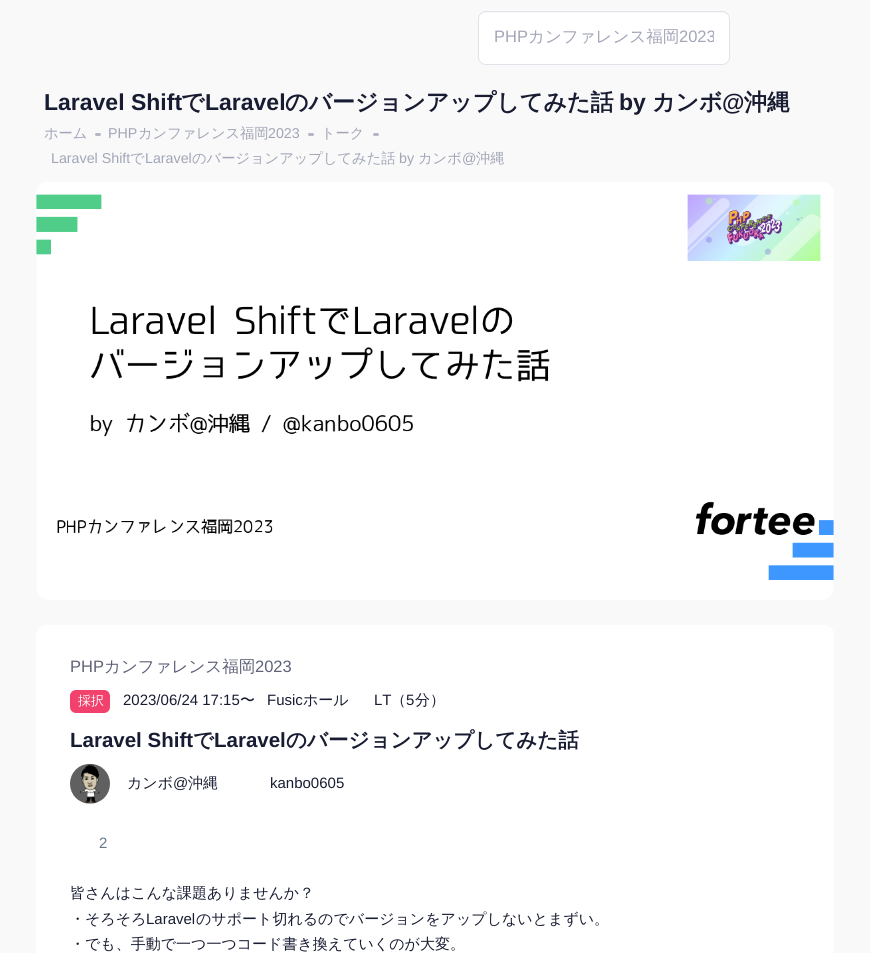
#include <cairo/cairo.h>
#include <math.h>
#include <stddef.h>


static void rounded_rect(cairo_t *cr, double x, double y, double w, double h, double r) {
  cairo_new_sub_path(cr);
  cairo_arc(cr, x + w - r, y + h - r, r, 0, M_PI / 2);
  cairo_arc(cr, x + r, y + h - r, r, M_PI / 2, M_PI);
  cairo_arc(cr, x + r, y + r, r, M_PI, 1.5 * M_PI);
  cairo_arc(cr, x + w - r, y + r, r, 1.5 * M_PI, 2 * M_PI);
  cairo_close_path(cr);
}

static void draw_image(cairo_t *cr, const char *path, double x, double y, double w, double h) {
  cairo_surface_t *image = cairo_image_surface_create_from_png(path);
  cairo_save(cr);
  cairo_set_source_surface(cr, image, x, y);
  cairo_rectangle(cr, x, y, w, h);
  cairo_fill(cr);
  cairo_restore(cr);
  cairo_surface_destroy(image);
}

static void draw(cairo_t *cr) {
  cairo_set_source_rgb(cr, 249 / 255.0, 249 / 255.0, 249 / 255.0);
  cairo_paint(cr);
  cairo_set_source_rgb(cr, 1, 1, 1);
  rounded_rect(cr, 479, 13, 250, 51, 6);
  cairo_fill(cr);
  rounded_rect(cr, 478.5, 11.5, 251, 53, 7.5);
  cairo_set_source_rgb(cr, 225 / 255.0, 227 / 255.0, 234 / 255.0);
  cairo_set_line_width(cr, 1);
  cairo_stroke(cr);
  cairo_set_source_rgb(cr, 181 / 255.0, 181 / 255.0, 195 / 255.0);
  rounded_rect(cr, 95, 133, 6, 3, 1.5);
  cairo_fill(cr);
  rounded_rect(cr, 308, 133, 6, 3, 1.5);
  cairo_fill(cr);
  rounded_rect(cr, 373, 133, 6, 3, 1.5);
  cairo_fill(cr);
  draw_image(cr, "images/1.png", 36, 182, 798, 418);
  cairo_set_source_rgb(cr, 1, 1, 1);
  rounded_rect(cr, 36, 625, 798, 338, 10);
  cairo_fill(cr);
  cairo_set_source_rgb(cr, 241 / 255.0, 65 / 255.0, 108 / 255.0);
  rounded_rect(cr, 70, 690, 40, 23, 6);
  cairo_fill(cr);
  draw_image(cr, "images/2.png", 70, 763, 40, 41);
  cairo_select_font_face(cr, "Liberation Sans", CAIRO_FONT_SLANT_NORMAL, CAIRO_FONT_WEIGHT_NORMAL);
  cairo_set_font_size(cr, 16.5);
  cairo_set_source_rgb(cr, 161 / 255.0, 165 / 255.0, 183 / 255.0);
  cairo_move_to(cr, 494, 42);
  cairo_show_text(cr, "PHP");
  cairo_select_font_face(cr, "WenQuanYi Zen Hei Medium", CAIRO_FONT_SLANT_NORMAL, CAIRO_FONT_WEIGHT_NORMAL);
  cairo_move_to(cr, 528, 42);
  cairo_show_text(cr, "カンファレンス福岡");
  cairo_save(cr);
  cairo_rectangle(cr, 494, 26, 220, 23);
  cairo_clip(cr);
  cairo_select_font_face(cr, "Liberation Sans", CAIRO_FONT_SLANT_NORMAL, CAIRO_FONT_WEIGHT_NORMAL);
  cairo_move_to(cr, 679, 42);
  cairo_show_text(cr, "2023");
  cairo_restore(cr);
  cairo_select_font_face(cr, "Liberation Sans", CAIRO_FONT_SLANT_NORMAL, CAIRO_FONT_WEIGHT_BOLD);
  cairo_set_font_size(cr, 23);
  cairo_set_source_rgb(cr, 24 / 255.0, 28 / 255.0, 50 / 255.0);
  cairo_move_to(cr, 44, 110);
  cairo_show_text(cr, "Laravel Shift");
  cairo_select_font_face(cr, "WenQuanYi Zen Hei", CAIRO_FONT_SLANT_NORMAL, CAIRO_FONT_WEIGHT_BOLD);
  cairo_move_to(cr, 181, 110);
  cairo_show_text(cr, "で");
  cairo_select_font_face(cr, "Liberation Sans", CAIRO_FONT_SLANT_NORMAL, CAIRO_FONT_WEIGHT_BOLD);
  cairo_move_to(cr, 205, 110);
  cairo_show_text(cr, "Laravel");
  cairo_select_font_face(cr, "WenQuanYi Zen Hei", CAIRO_FONT_SLANT_NORMAL, CAIRO_FONT_WEIGHT_BOLD);
  cairo_move_to(cr, 285, 110);
  cairo_show_text(cr, "のバージョンアップしてみた話");
  cairo_select_font_face(cr, "Liberation Sans", CAIRO_FONT_SLANT_NORMAL, CAIRO_FONT_WEIGHT_BOLD);
  cairo_move_to(cr, 619, 110);
  cairo_show_text(cr, "by");
  cairo_select_font_face(cr, "WenQuanYi Zen Hei", CAIRO_FONT_SLANT_NORMAL, CAIRO_FONT_WEIGHT_BOLD);
  cairo_move_to(cr, 652, 110);
  cairo_show_text(cr, "カンボ");
  cairo_select_font_face(cr, "Liberation Sans", CAIRO_FONT_SLANT_NORMAL, CAIRO_FONT_WEIGHT_BOLD);
  cairo_move_to(cr, 722, 110);
  cairo_show_text(cr, "@");
  cairo_select_font_face(cr, "WenQuanYi Zen Hei", CAIRO_FONT_SLANT_NORMAL, CAIRO_FONT_WEIGHT_BOLD);
  cairo_move_to(cr, 744, 110);
  cairo_show_text(cr, "沖縄");
  cairo_select_font_face(cr, "WenQuanYi Zen Hei Medium", CAIRO_FONT_SLANT_NORMAL, CAIRO_FONT_WEIGHT_NORMAL);
  cairo_set_font_size(cr, 14.25);
  cairo_set_source_rgb(cr, 161 / 255.0, 165 / 255.0, 183 / 255.0);
  cairo_move_to(cr, 44, 138);
  cairo_show_text(cr, "ホーム");
  cairo_select_font_face(cr, "Liberation Sans", CAIRO_FONT_SLANT_NORMAL, CAIRO_FONT_WEIGHT_NORMAL);
  cairo_move_to(cr, 108, 138);
  cairo_show_text(cr, "PHP");
  cairo_select_font_face(cr, "WenQuanYi Zen Hei Medium", CAIRO_FONT_SLANT_NORMAL, CAIRO_FONT_WEIGHT_NORMAL);
  cairo_move_to(cr, 138, 138);
  cairo_show_text(cr, "カンファレンス福岡");
  cairo_select_font_face(cr, "Liberation Sans", CAIRO_FONT_SLANT_NORMAL, CAIRO_FONT_WEIGHT_NORMAL);
  cairo_move_to(cr, 268, 138);
  cairo_show_text(cr, "2023");
  cairo_select_font_face(cr, "WenQuanYi Zen Hei Medium", CAIRO_FONT_SLANT_NORMAL, CAIRO_FONT_WEIGHT_NORMAL);
  cairo_move_to(cr, 321, 138);
  cairo_show_text(cr, "トーク");
  cairo_select_font_face(cr, "Liberation Sans", CAIRO_FONT_SLANT_NORMAL, CAIRO_FONT_WEIGHT_NORMAL);
  cairo_move_to(cr, 51, 163);
  cairo_show_text(cr, "Laravel Shift");
  cairo_select_font_face(cr, "WenQuanYi Zen Hei Medium", CAIRO_FONT_SLANT_NORMAL, CAIRO_FONT_WEIGHT_NORMAL);
  cairo_move_to(cr, 130, 163);
  cairo_show_text(cr, "で");
  cairo_select_font_face(cr, "Liberation Sans", CAIRO_FONT_SLANT_NORMAL, CAIRO_FONT_WEIGHT_NORMAL);
  cairo_move_to(cr, 145, 163);
  cairo_show_text(cr, "Laravel");
  cairo_select_font_face(cr, "WenQuanYi Zen Hei Medium", CAIRO_FONT_SLANT_NORMAL, CAIRO_FONT_WEIGHT_NORMAL);
  cairo_move_to(cr, 192, 163);
  cairo_show_text(cr, "のバージョンアップしてみた話");
  cairo_select_font_face(cr, "Liberation Sans", CAIRO_FONT_SLANT_NORMAL, CAIRO_FONT_WEIGHT_NORMAL);
  cairo_move_to(cr, 399, 163);
  cairo_show_text(cr, "by");
  cairo_select_font_face(cr, "WenQuanYi Zen Hei Medium", CAIRO_FONT_SLANT_NORMAL, CAIRO_FONT_WEIGHT_NORMAL);
  cairo_move_to(cr, 418, 163);
  cairo_show_text(cr, "カンボ");
  cairo_select_font_face(cr, "Liberation Sans", CAIRO_FONT_SLANT_NORMAL, CAIRO_FONT_WEIGHT_NORMAL);
  cairo_move_to(cr, 462, 163);
  cairo_show_text(cr, "@");
  cairo_select_font_face(cr, "WenQuanYi Zen Hei Medium", CAIRO_FONT_SLANT_NORMAL, CAIRO_FONT_WEIGHT_NORMAL);
  cairo_move_to(cr, 476, 163);
  cairo_show_text(cr, "沖縄");
  cairo_select_font_face(cr, "Liberation Sans", CAIRO_FONT_SLANT_NORMAL, CAIRO_FONT_WEIGHT_NORMAL);
  cairo_set_font_size(cr, 16.5);
  cairo_set_source_rgb(cr, 94 / 255.0, 98 / 255.0, 120 / 255.0);
  cairo_move_to(cr, 70, 672);
  cairo_show_text(cr, "PHP");
  cairo_select_font_face(cr, "WenQuanYi Zen Hei Medium", CAIRO_FONT_SLANT_NORMAL, CAIRO_FONT_WEIGHT_NORMAL);
  cairo_move_to(cr, 104, 672);
  cairo_show_text(cr, "カンファレンス福岡");
  cairo_select_font_face(cr, "Liberation Sans", CAIRO_FONT_SLANT_NORMAL, CAIRO_FONT_WEIGHT_NORMAL);
  cairo_move_to(cr, 255, 672);
  cairo_show_text(cr, "2023");
  cairo_select_font_face(cr, "WenQuanYi Zen Hei Medium", CAIRO_FONT_SLANT_NORMAL, CAIRO_FONT_WEIGHT_NORMAL);
  cairo_set_font_size(cr, 13);
  cairo_set_source_rgb(cr, 1, 1, 1);
  cairo_move_to(cr, 78, 705);
  cairo_show_text(cr, "採択");
  cairo_select_font_face(cr, "Liberation Sans", CAIRO_FONT_SLANT_NORMAL, CAIRO_FONT_WEIGHT_NORMAL);
  cairo_set_font_size(cr, 15);
  cairo_set_source_rgb(cr, 24 / 255.0, 28 / 255.0, 50 / 255.0);
  cairo_move_to(cr, 123, 705);
  cairo_show_text(cr, "2023/06/24 17:15");
  cairo_select_font_face(cr, "WenQuanYi Zen Hei Medium", CAIRO_FONT_SLANT_NORMAL, CAIRO_FONT_WEIGHT_NORMAL);
  cairo_move_to(cr, 240, 705);
  cairo_show_text(cr, "〜");
  cairo_select_font_face(cr, "Liberation Sans", CAIRO_FONT_SLANT_NORMAL, CAIRO_FONT_WEIGHT_NORMAL);
  cairo_move_to(cr, 267, 705);
  cairo_show_text(cr, "Fusic");
  cairo_select_font_face(cr, "WenQuanYi Zen Hei Medium", CAIRO_FONT_SLANT_NORMAL, CAIRO_FONT_WEIGHT_NORMAL);
  cairo_move_to(cr, 303, 705);
  cairo_show_text(cr, "ホール");
  cairo_select_font_face(cr, "Liberation Sans", CAIRO_FONT_SLANT_NORMAL, CAIRO_FONT_WEIGHT_NORMAL);
  cairo_move_to(cr, 374, 705);
  cairo_show_text(cr, "LT");
  cairo_select_font_face(cr, "WenQuanYi Zen Hei Medium", CAIRO_FONT_SLANT_NORMAL, CAIRO_FONT_WEIGHT_NORMAL);
  cairo_move_to(cr, 391, 705);
  cairo_show_text(cr, "（");
  cairo_select_font_face(cr, "Liberation Sans", CAIRO_FONT_SLANT_NORMAL, CAIRO_FONT_WEIGHT_NORMAL);
  cairo_move_to(cr, 406, 705);
  cairo_show_text(cr, "5");
  cairo_select_font_face(cr, "WenQuanYi Zen Hei Medium", CAIRO_FONT_SLANT_NORMAL, CAIRO_FONT_WEIGHT_NORMAL);
  cairo_move_to(cr, 415, 705);
  cairo_show_text(cr, "分）");
  cairo_select_font_face(cr, "Liberation Sans", CAIRO_FONT_SLANT_NORMAL, CAIRO_FONT_WEIGHT_BOLD);
  cairo_set_font_size(cr, 20.5);
  cairo_move_to(cr, 70, 747);
  cairo_show_text(cr, "Laravel Shift");
  cairo_select_font_face(cr, "WenQuanYi Zen Hei", CAIRO_FONT_SLANT_NORMAL, CAIRO_FONT_WEIGHT_BOLD);
  cairo_move_to(cr, 193, 747);
  cairo_show_text(cr, "で");
  cairo_select_font_face(cr, "Liberation Sans", CAIRO_FONT_SLANT_NORMAL, CAIRO_FONT_WEIGHT_BOLD);
  cairo_move_to(cr, 214, 747);
  cairo_show_text(cr, "Laravel");
  cairo_select_font_face(cr, "WenQuanYi Zen Hei", CAIRO_FONT_SLANT_NORMAL, CAIRO_FONT_WEIGHT_BOLD);
  cairo_move_to(cr, 286, 747);
  cairo_show_text(cr, "のバージョンアップしてみた話");
  cairo_select_font_face(cr, "WenQuanYi Zen Hei Medium", CAIRO_FONT_SLANT_NORMAL, CAIRO_FONT_WEIGHT_NORMAL);
  cairo_set_font_size(cr, 15);
  cairo_move_to(cr, 127, 788);
  cairo_show_text(cr, "カンボ");
  cairo_select_font_face(cr, "Liberation Sans", CAIRO_FONT_SLANT_NORMAL, CAIRO_FONT_WEIGHT_NORMAL);
  cairo_move_to(cr, 173, 788);
  cairo_show_text(cr, "@");
  cairo_select_font_face(cr, "WenQuanYi Zen Hei Medium", CAIRO_FONT_SLANT_NORMAL, CAIRO_FONT_WEIGHT_NORMAL);
  cairo_move_to(cr, 188, 788);
  cairo_show_text(cr, "沖縄");
  cairo_select_font_face(cr, "Liberation Sans", CAIRO_FONT_SLANT_NORMAL, CAIRO_FONT_WEIGHT_NORMAL);
  cairo_move_to(cr, 270, 788);
  cairo_show_text(cr, "kanbo0605");
  cairo_set_source_rgb(cr, 101 / 255.0, 119 / 255.0, 134 / 255.0);
  cairo_move_to(cr, 99, 848);
  cairo_show_text(cr, "2");
  cairo_select_font_face(cr, "WenQuanYi Zen Hei Medium", CAIRO_FONT_SLANT_NORMAL, CAIRO_FONT_WEIGHT_NORMAL);
  cairo_set_source_rgb(cr, 24 / 255.0, 28 / 255.0, 50 / 255.0);
  cairo_move_to(cr, 70, 898);
  cairo_show_text(cr, "皆さんはこんな課題ありませんか？");
  cairo_move_to(cr, 70, 924);
  cairo_show_text(cr, "・そろそろ");
  cairo_select_font_face(cr, "Liberation Sans", CAIRO_FONT_SLANT_NORMAL, CAIRO_FONT_WEIGHT_NORMAL);
  cairo_move_to(cr, 146, 924);
  cairo_show_text(cr, "Laravel");
  cairo_select_font_face(cr, "WenQuanYi Zen Hei Medium", CAIRO_FONT_SLANT_NORMAL, CAIRO_FONT_WEIGHT_NORMAL);
  cairo_move_to(cr, 196, 924);
  cairo_show_text(cr, "のサポート切れるのでバージョンをアップしないとまずい。");
  cairo_move_to(cr, 70, 949);
  cairo_show_text(cr, "・でも、手動で一つ一つコード書き換えていくのが大変。");
}

int main(void) {
  cairo_surface_t *surface = cairo_image_surface_create(CAIRO_FORMAT_RGB24, 870, 953);
  cairo_t *cr = cairo_create(surface);
  cairo_font_options_t *options = cairo_font_options_create();
  cairo_font_options_set_hint_metrics(options, CAIRO_HINT_METRICS_OFF);
  cairo_font_options_set_hint_style(options, CAIRO_HINT_STYLE_NONE);
  cairo_set_font_options(cr, options);
  cairo_set_miter_limit(cr, 4);
  draw(cr);
  cairo_surface_write_to_png(surface, "out.png");
  cairo_font_options_destroy(options);
  cairo_destroy(cr);
  cairo_surface_destroy(surface);
  return 0;
}
